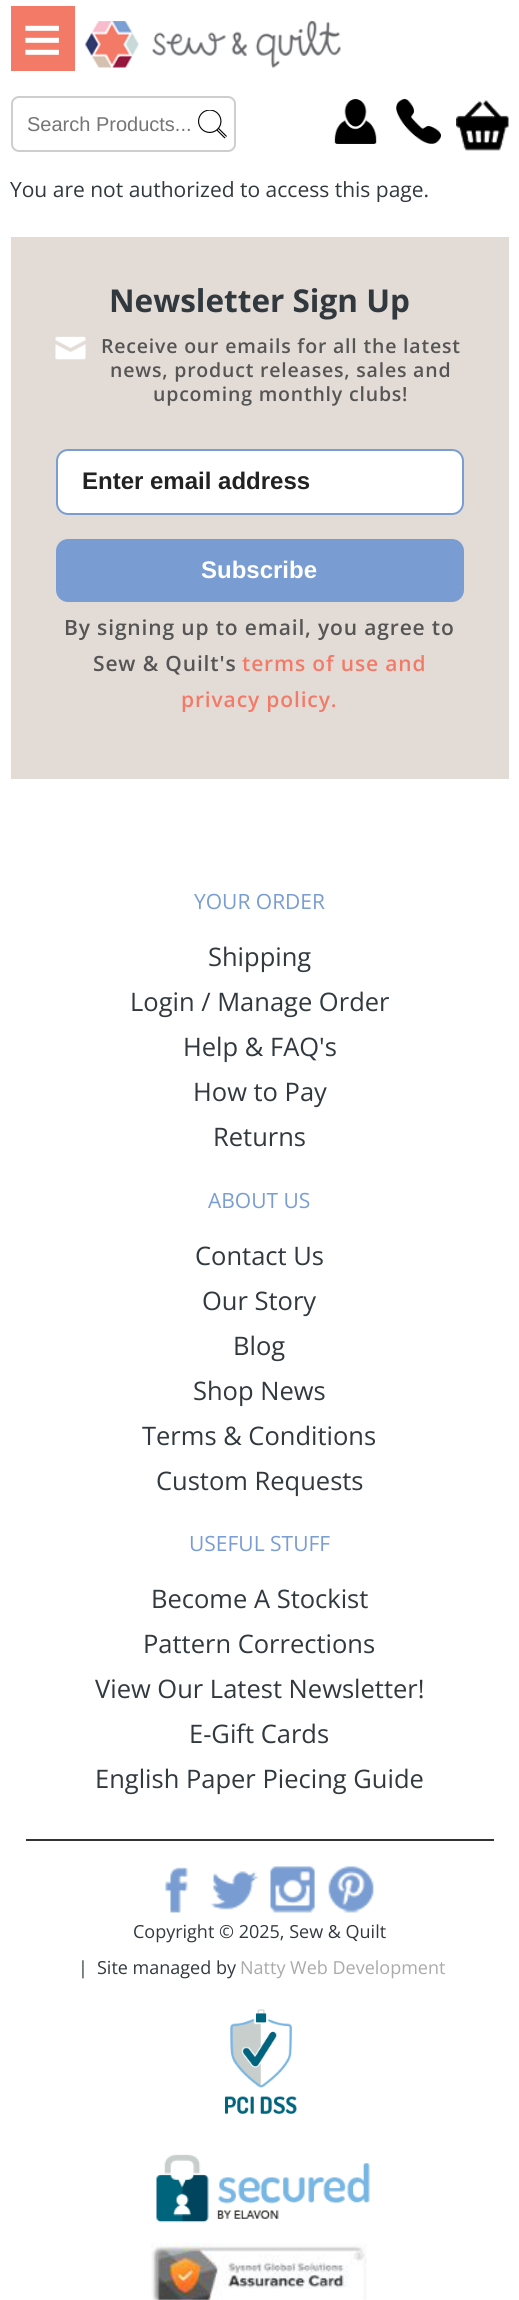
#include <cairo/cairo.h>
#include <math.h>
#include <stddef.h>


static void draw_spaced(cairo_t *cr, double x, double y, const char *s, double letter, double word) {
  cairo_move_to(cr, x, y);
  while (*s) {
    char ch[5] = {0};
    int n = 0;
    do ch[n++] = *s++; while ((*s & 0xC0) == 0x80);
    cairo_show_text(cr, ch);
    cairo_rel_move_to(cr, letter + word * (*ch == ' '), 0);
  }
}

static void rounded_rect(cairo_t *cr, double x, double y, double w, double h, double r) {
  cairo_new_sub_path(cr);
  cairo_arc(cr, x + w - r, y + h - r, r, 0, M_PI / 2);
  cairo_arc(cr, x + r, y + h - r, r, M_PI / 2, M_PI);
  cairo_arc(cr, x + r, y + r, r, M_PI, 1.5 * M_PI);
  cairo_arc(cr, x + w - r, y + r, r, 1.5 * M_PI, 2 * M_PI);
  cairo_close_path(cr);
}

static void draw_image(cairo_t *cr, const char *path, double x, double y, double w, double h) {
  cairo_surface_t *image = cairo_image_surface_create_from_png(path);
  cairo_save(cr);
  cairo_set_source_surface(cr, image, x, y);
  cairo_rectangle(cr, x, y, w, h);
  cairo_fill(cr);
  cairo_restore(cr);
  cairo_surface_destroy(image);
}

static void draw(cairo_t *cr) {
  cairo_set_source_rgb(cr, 1, 1, 1);
  cairo_paint(cr);
  cairo_set_source_rgb(cr, 244 / 255.0, 122 / 255.0, 104 / 255.0);
  cairo_rectangle(cr, 11, 6, 64, 65);
  cairo_fill(cr);
  draw_image(cr, "images/1.png", 85, 21, 256, 47);
  rounded_rect(cr, 12, 97, 223, 54, 7);
  cairo_set_source_rgb(cr, 206 / 255.0, 206 / 255.0, 206 / 255.0);
  cairo_stroke(cr);
  draw_image(cr, "images/2.png", 198, 110, 29, 29);
  draw_image(cr, "images/3.png", 334, 99, 43, 45);
  draw_image(cr, "images/4.png", 396, 99, 45, 45);
  draw_image(cr, "images/5.png", 456, 100, 53, 51);
  cairo_set_source_rgb(cr, 227 / 255.0, 220 / 255.0, 214 / 255.0);
  cairo_rectangle(cr, 11, 237, 498, 542);
  cairo_fill(cr);
  draw_image(cr, "images/6.png", 55, 336, 31, 24);
  cairo_set_source_rgb(cr, 1, 1, 1);
  rounded_rect(cr, 57, 450, 406, 64, 11);
  cairo_fill_preserve(cr);
  cairo_set_source_rgb(cr, 121 / 255.0, 157 / 255.0, 210 / 255.0);
  cairo_stroke(cr);
  rounded_rect(cr, 56, 539, 408, 63, 12);
  cairo_fill(cr);
  cairo_set_source_rgb(cr, 51 / 255.0, 51 / 255.0, 51 / 255.0);
  cairo_rectangle(cr, 26, 1839, 468, 2);
  cairo_fill(cr);
  draw_image(cr, "images/7.png", 165, 1867, 23, 46);
  draw_image(cr, "images/8.png", 210, 1871, 49, 39);
  draw_image(cr, "images/9.png", 270, 1866, 45, 47);
  draw_image(cr, "images/10.png", 328, 1866, 46, 47);
  draw_image(cr, "images/11.png", 225, 2009, 72, 105);
  draw_image(cr, "images/12.png", 156, 2154, 214, 69);
  draw_image(cr, "images/13.png", 151, 2242, 216, 58);
  cairo_select_font_face(cr, "Liberation Sans", CAIRO_FONT_SLANT_NORMAL, CAIRO_FONT_WEIGHT_NORMAL);
  cairo_set_font_size(cr, 69);
  cairo_set_source_rgb(cr, 1, 1, 1);
  cairo_move_to(cr, 22, 63);
  cairo_show_text(cr, "≡");
  cairo_set_font_size(cr, 20);
  cairo_set_source_rgb(cr, 117 / 255.0, 117 / 255.0, 117 / 255.0);
  cairo_move_to(cr, 27, 131);
  cairo_show_text(cr, "Search Products...");
  cairo_select_font_face(cr, "Open Sans", CAIRO_FONT_SLANT_NORMAL, CAIRO_FONT_WEIGHT_NORMAL);
  cairo_set_font_size(cr, 21);
  cairo_set_source_rgb(cr, 49 / 255.0, 57 / 255.0, 63 / 255.0);
  cairo_move_to(cr, 10, 197);
  cairo_show_text(cr, "You are not authorized to access this page.");
  cairo_select_font_face(cr, "Open Sans", CAIRO_FONT_SLANT_NORMAL, CAIRO_FONT_WEIGHT_BOLD);
  cairo_set_font_size(cr, 31.5);
  cairo_move_to(cr, 109, 312);
  cairo_show_text(cr, "Newsletter Sign Up");
  cairo_select_font_face(cr, "Open Sans SemiBold", CAIRO_FONT_SLANT_NORMAL, CAIRO_FONT_WEIGHT_NORMAL);
  cairo_set_font_size(cr, 19.5);
  cairo_set_source_rgb(cr, 85 / 255.0, 85 / 255.0, 85 / 255.0);
  draw_spaced(cr, 101, 353, "Receive our emails for all the latest", 0.8, 0);
  draw_spaced(cr, 110, 377, "news, product releases, sales and", 0.8, 0);
  draw_spaced(cr, 153, 401, "upcoming monthly clubs!", 0.8, 0);
  cairo_select_font_face(cr, "Liberation Sans", CAIRO_FONT_SLANT_NORMAL, CAIRO_FONT_WEIGHT_BOLD);
  cairo_set_font_size(cr, 24);
  cairo_set_source_rgb(cr, 34 / 255.0, 34 / 255.0, 34 / 255.0);
  cairo_move_to(cr, 82, 489);
  cairo_show_text(cr, "Enter email address");
  cairo_set_source_rgb(cr, 1, 1, 1);
  cairo_move_to(cr, 201, 578);
  cairo_show_text(cr, "Subscribe");
  cairo_select_font_face(cr, "Open Sans SemiBold", CAIRO_FONT_SLANT_NORMAL, CAIRO_FONT_WEIGHT_NORMAL);
  cairo_set_font_size(cr, 21);
  cairo_set_source_rgb(cr, 85 / 255.0, 85 / 255.0, 85 / 255.0);
  draw_spaced(cr, 64, 635, "By signing up to email, you agree to", 0.85, 0);
  draw_spaced(cr, 93, 671, "Sew & Quilt's", 0.85, 0);
  cairo_set_source_rgb(cr, 244 / 255.0, 122 / 255.0, 104 / 255.0);
  draw_spaced(cr, 242, 671, "terms of use and", 0.85, 0);
  draw_spaced(cr, 181, 707, "privacy policy.", 0.85, 0);
  cairo_select_font_face(cr, "Open Sans", CAIRO_FONT_SLANT_NORMAL, CAIRO_FONT_WEIGHT_NORMAL);
  cairo_set_source_rgb(cr, 121 / 255.0, 157 / 255.0, 210 / 255.0);
  cairo_move_to(cr, 194, 909);
  cairo_show_text(cr, "YOUR ORDER");
  cairo_set_font_size(cr, 25.5);
  cairo_set_source_rgb(cr, 49 / 255.0, 57 / 255.0, 63 / 255.0);
  cairo_move_to(cr, 208, 966);
  cairo_show_text(cr, "Shipping");
  cairo_move_to(cr, 130, 1011);
  cairo_show_text(cr, "Login / Manage Order");
  cairo_move_to(cr, 183, 1056);
  cairo_show_text(cr, "Help & FAQ's");
  cairo_move_to(cr, 193, 1101);
  cairo_show_text(cr, "How to Pay");
  cairo_move_to(cr, 213, 1146);
  cairo_show_text(cr, "Returns");
  cairo_set_font_size(cr, 21);
  cairo_set_source_rgb(cr, 121 / 255.0, 157 / 255.0, 210 / 255.0);
  cairo_move_to(cr, 208, 1208);
  cairo_show_text(cr, "ABOUT US");
  cairo_set_font_size(cr, 25.5);
  cairo_set_source_rgb(cr, 49 / 255.0, 57 / 255.0, 63 / 255.0);
  cairo_move_to(cr, 195, 1265);
  cairo_show_text(cr, "Contact Us");
  cairo_move_to(cr, 202, 1310);
  cairo_show_text(cr, "Our Story");
  cairo_move_to(cr, 233, 1355);
  cairo_show_text(cr, "Blog");
  cairo_move_to(cr, 193, 1400);
  cairo_show_text(cr, "Shop News");
  cairo_move_to(cr, 142, 1445);
  cairo_show_text(cr, "Terms & Conditions");
  cairo_move_to(cr, 156, 1490);
  cairo_show_text(cr, "Custom Requests");
  cairo_set_font_size(cr, 21);
  cairo_set_source_rgb(cr, 121 / 255.0, 157 / 255.0, 210 / 255.0);
  cairo_move_to(cr, 189, 1551);
  cairo_show_text(cr, "USEFUL STUFF");
  cairo_set_font_size(cr, 25.5);
  cairo_set_source_rgb(cr, 49 / 255.0, 57 / 255.0, 63 / 255.0);
  cairo_move_to(cr, 151, 1608);
  cairo_show_text(cr, "Become A Stockist");
  cairo_move_to(cr, 143, 1653);
  cairo_show_text(cr, "Pattern Corrections");
  cairo_move_to(cr, 95, 1698);
  cairo_show_text(cr, "View Our Latest Newsletter!");
  cairo_move_to(cr, 189, 1743);
  cairo_show_text(cr, "E-Gift Cards");
  cairo_move_to(cr, 95, 1788);
  cairo_show_text(cr, "English Paper Piecing Guide");
  cairo_set_font_size(cr, 18);
  cairo_move_to(cr, 133, 1938);
  cairo_show_text(cr, "Copyright © 2025, Sew & Quilt");
  cairo_move_to(cr, 78, 1974);
  cairo_show_text(cr, "|");
  cairo_move_to(cr, 97, 1974);
  cairo_show_text(cr, "Site managed by");
  cairo_set_source_rgb(cr, 170 / 255.0, 170 / 255.0, 170 / 255.0);
  cairo_move_to(cr, 240, 1974);
  cairo_show_text(cr, "Natty Web Development");
}

int main(void) {
  cairo_surface_t *surface = cairo_image_surface_create(CAIRO_FORMAT_RGB24, 519, 2300);
  cairo_t *cr = cairo_create(surface);
  cairo_font_options_t *options = cairo_font_options_create();
  cairo_font_options_set_hint_metrics(options, CAIRO_HINT_METRICS_OFF);
  cairo_font_options_set_hint_style(options, CAIRO_HINT_STYLE_NONE);
  cairo_set_font_options(cr, options);
  cairo_set_miter_limit(cr, 4);
  draw(cr);
  cairo_surface_write_to_png(surface, "out.png");
  cairo_font_options_destroy(options);
  cairo_destroy(cr);
  cairo_surface_destroy(surface);
  return 0;
}
